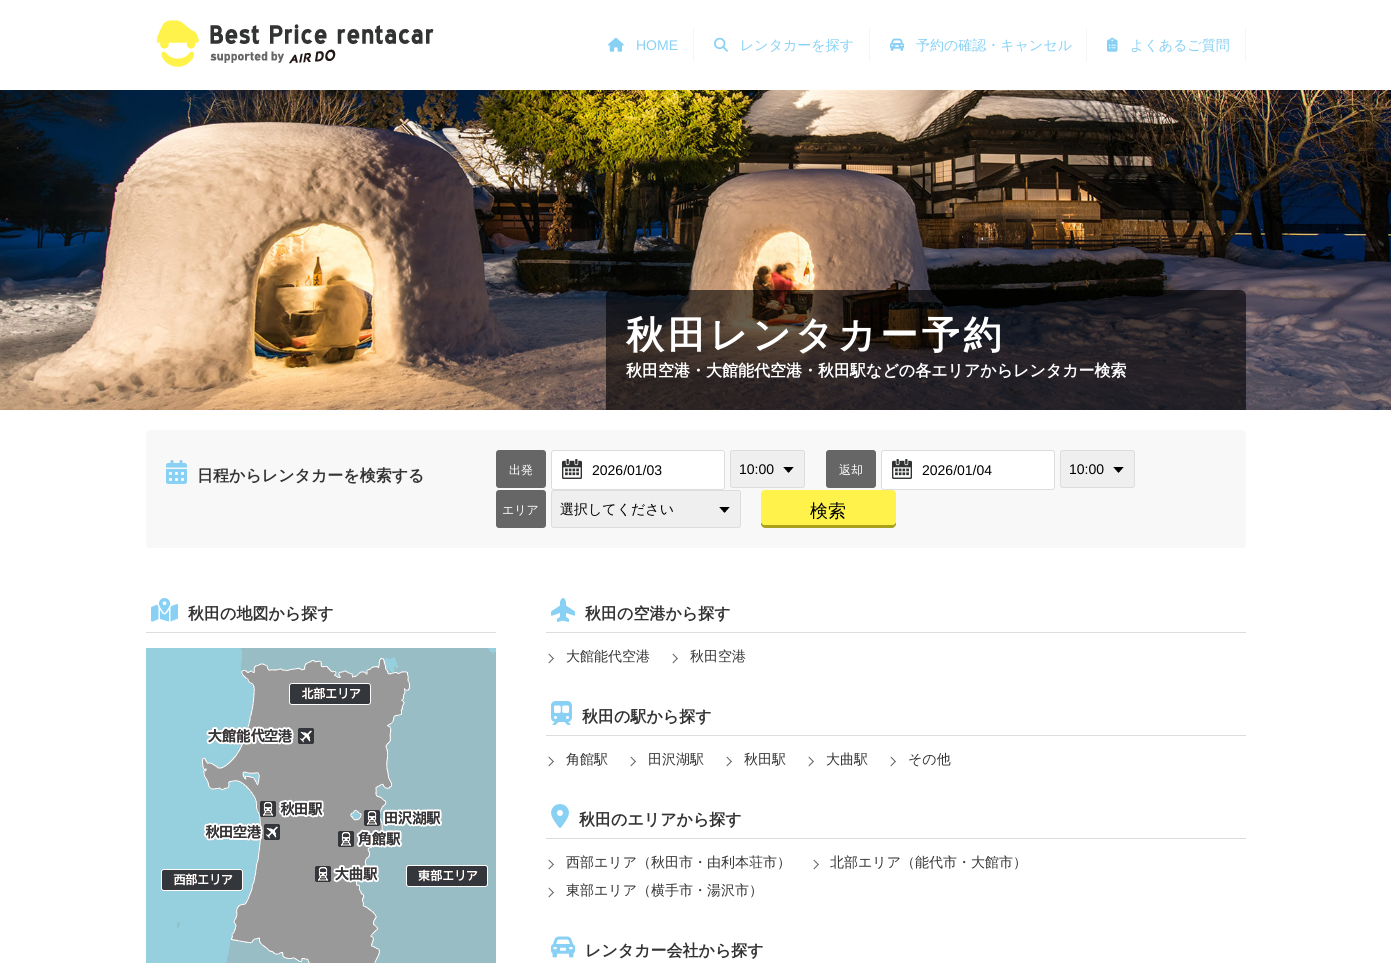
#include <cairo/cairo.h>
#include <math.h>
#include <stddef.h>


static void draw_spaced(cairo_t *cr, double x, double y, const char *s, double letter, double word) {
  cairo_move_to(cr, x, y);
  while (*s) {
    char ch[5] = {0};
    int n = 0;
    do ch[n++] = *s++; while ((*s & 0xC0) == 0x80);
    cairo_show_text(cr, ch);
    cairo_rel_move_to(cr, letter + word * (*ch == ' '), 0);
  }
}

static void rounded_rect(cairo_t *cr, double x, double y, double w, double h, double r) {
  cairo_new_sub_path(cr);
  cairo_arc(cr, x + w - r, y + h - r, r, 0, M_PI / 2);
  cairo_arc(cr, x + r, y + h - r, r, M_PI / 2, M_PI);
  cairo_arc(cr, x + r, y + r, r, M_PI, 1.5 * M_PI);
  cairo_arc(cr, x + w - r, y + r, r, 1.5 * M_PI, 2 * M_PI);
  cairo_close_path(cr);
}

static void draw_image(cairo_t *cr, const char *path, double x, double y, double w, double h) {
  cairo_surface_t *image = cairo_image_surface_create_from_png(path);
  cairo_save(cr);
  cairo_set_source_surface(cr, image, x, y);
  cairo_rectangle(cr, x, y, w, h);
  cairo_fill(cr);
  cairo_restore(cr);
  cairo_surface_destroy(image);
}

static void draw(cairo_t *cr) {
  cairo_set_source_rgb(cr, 1, 1, 1);
  cairo_paint(cr);
  draw_image(cr, "images/1.png", 157, 20, 277, 47);
  cairo_set_source_rgb(cr, 245 / 255.0, 245 / 255.0, 245 / 255.0);
  cairo_rectangle(cr, 693, 28, 1, 34);
  cairo_fill(cr);
  draw_image(cr, "images/2.png", 608, 37, 16, 15);
  cairo_rectangle(cr, 869, 28, 1, 34);
  cairo_fill(cr);
  draw_image(cr, "images/3.png", 714, 37, 14, 15);
  cairo_rectangle(cr, 1086, 28, 1, 34);
  cairo_fill(cr);
  draw_image(cr, "images/4.png", 890, 38, 14, 13);
  cairo_rectangle(cr, 1245, 28, 1, 34);
  cairo_fill(cr);
  draw_image(cr, "images/5.png", 1107, 37, 11, 15);
  draw_image(cr, "images/6.png", 0, 90, 1391, 320);
  cairo_set_source_rgba(cr, 0, 0, 0, 0.6);
  cairo_new_path(cr);
  cairo_move_to(cr, 612, 290);
  cairo_line_to(cr, 1240, 290);
  cairo_curve_to(cr, 1243.5, 290, 1246, 292.5, 1246, 296);
  cairo_line_to(cr, 1246, 410);
  cairo_line_to(cr, 606, 410);
  cairo_line_to(cr, 606, 296);
  cairo_curve_to(cr, 606, 292.5, 608.5, 290, 612, 290);
  cairo_close_path(cr);
  cairo_fill(cr);
  cairo_set_source_rgb(cr, 248 / 255.0, 248 / 255.0, 248 / 255.0);
  rounded_rect(cr, 146, 430, 1100, 118, 4);
  cairo_fill(cr);
  draw_image(cr, "images/7.png", 166, 460, 21, 24);
  cairo_set_source_rgb(cr, 102 / 255.0, 102 / 255.0, 102 / 255.0);
  rounded_rect(cr, 496, 450, 50, 38, 3);
  cairo_fill(cr);
  cairo_set_source_rgb(cr, 1, 1, 1);
  rounded_rect(cr, 551, 450, 174, 40, 3);
  cairo_fill(cr);
  draw_image(cr, "images/8.png", 562, 459, 20, 20);
  rounded_rect(cr, 551.5, 450.5, 173, 39, 2.5);
  cairo_set_source_rgb(cr, 221 / 255.0, 221 / 255.0, 221 / 255.0);
  cairo_set_line_width(cr, 1);
  cairo_stroke(cr);
  cairo_set_source_rgb(cr, 239 / 255.0, 239 / 255.0, 239 / 255.0);
  rounded_rect(cr, 730, 450, 75, 38, 3);
  cairo_fill(cr);
  draw_image(cr, "images/9.png", 783, 467, 11, 6);
  rounded_rect(cr, 730.5, 450.5, 74, 37, 2.5);
  cairo_set_source_rgb(cr, 221 / 255.0, 221 / 255.0, 221 / 255.0);
  cairo_stroke(cr);
  cairo_set_source_rgb(cr, 102 / 255.0, 102 / 255.0, 102 / 255.0);
  rounded_rect(cr, 826, 450, 50, 38, 3);
  cairo_fill(cr);
  cairo_set_source_rgb(cr, 1, 1, 1);
  rounded_rect(cr, 881, 450, 174, 40, 3);
  cairo_fill(cr);
  draw_image(cr, "images/8.png", 892, 459, 20, 20);
  rounded_rect(cr, 881.5, 450.5, 173, 39, 2.5);
  cairo_set_source_rgb(cr, 221 / 255.0, 221 / 255.0, 221 / 255.0);
  cairo_stroke(cr);
  cairo_set_source_rgb(cr, 239 / 255.0, 239 / 255.0, 239 / 255.0);
  rounded_rect(cr, 1060, 450, 75, 38, 3);
  cairo_fill(cr);
  draw_image(cr, "images/9.png", 1113, 467, 11, 6);
  rounded_rect(cr, 1060.5, 450.5, 74, 37, 2.5);
  cairo_set_source_rgb(cr, 221 / 255.0, 221 / 255.0, 221 / 255.0);
  cairo_stroke(cr);
  cairo_set_source_rgb(cr, 102 / 255.0, 102 / 255.0, 102 / 255.0);
  rounded_rect(cr, 496, 490, 50, 38, 3);
  cairo_fill(cr);
  cairo_set_source_rgb(cr, 239 / 255.0, 239 / 255.0, 239 / 255.0);
  rounded_rect(cr, 551, 490, 190, 38, 3);
  cairo_fill(cr);
  draw_image(cr, "images/9.png", 719, 507, 11, 6);
  rounded_rect(cr, 551.5, 490.5, 189, 37, 2.5);
  cairo_set_source_rgb(cr, 221 / 255.0, 221 / 255.0, 221 / 255.0);
  cairo_stroke(cr);
  cairo_set_source_rgb(cr, 169 / 255.0, 160 / 255.0, 27 / 255.0);
  cairo_new_path(cr);
  cairo_move_to(cr, 761, 521);
  cairo_line_to(cr, 761, 524);
  cairo_curve_to(cr, 761, 526, 763, 528, 765, 528);
  cairo_line_to(cr, 892, 528);
  cairo_curve_to(cr, 894, 528, 896, 526, 896, 524);
  cairo_line_to(cr, 896, 521);
  cairo_curve_to(cr, 896, 523, 894, 525, 892, 525);
  cairo_line_to(cr, 765, 525);
  cairo_curve_to(cr, 763, 525, 761, 523, 761, 521);
  cairo_close_path(cr);
  cairo_fill(cr);
  cairo_set_source_rgb(cr, 1, 243 / 255.0, 75 / 255.0);
  rounded_rect(cr, 761, 490, 135, 35, 4);
  cairo_fill(cr);
  cairo_set_source_rgb(cr, 221 / 255.0, 221 / 255.0, 221 / 255.0);
  cairo_rectangle(cr, 146, 632, 350, 1);
  cairo_fill(cr);
  draw_image(cr, "images/10.png", 151, 598, 27, 24);
  draw_image(cr, "images/11.png", 146, 648, 350, 315);
  cairo_rectangle(cr, 546, 632, 700, 1);
  cairo_fill(cr);
  draw_image(cr, "images/12.png", 551, 598, 24, 24);
  cairo_set_source_rgb(cr, 102 / 255.0, 102 / 255.0, 102 / 255.0);
  cairo_new_path(cr);
  cairo_move_to(cr, 548.5, 654.5);
  cairo_line_to(cr, 549, 653.5);
  cairo_line_to(cr, 554, 658.5);
  cairo_line_to(cr, 553, 659);
  cairo_close_path(cr);
  cairo_fill(cr);
  cairo_new_path(cr);
  cairo_move_to(cr, 548.5, 662.5);
  cairo_line_to(cr, 553, 658);
  cairo_line_to(cr, 554, 658.5);
  cairo_line_to(cr, 549, 663.5);
  cairo_close_path(cr);
  cairo_fill(cr);
  cairo_new_path(cr);
  cairo_move_to(cr, 672.5, 654.5);
  cairo_line_to(cr, 673, 653.5);
  cairo_line_to(cr, 678, 658.5);
  cairo_line_to(cr, 677, 659);
  cairo_close_path(cr);
  cairo_fill(cr);
  cairo_new_path(cr);
  cairo_move_to(cr, 672.5, 662.5);
  cairo_line_to(cr, 677, 658);
  cairo_line_to(cr, 678, 658.5);
  cairo_line_to(cr, 673, 663.5);
  cairo_close_path(cr);
  cairo_fill(cr);
  cairo_set_source_rgb(cr, 221 / 255.0, 221 / 255.0, 221 / 255.0);
  cairo_rectangle(cr, 546, 735, 700, 1);
  cairo_fill(cr);
  draw_image(cr, "images/13.png", 551, 701, 21, 24);
  cairo_set_source_rgb(cr, 102 / 255.0, 102 / 255.0, 102 / 255.0);
  cairo_new_path(cr);
  cairo_move_to(cr, 548.5, 757.5);
  cairo_line_to(cr, 549, 756.5);
  cairo_line_to(cr, 554, 761.5);
  cairo_line_to(cr, 553, 762);
  cairo_close_path(cr);
  cairo_fill(cr);
  cairo_new_path(cr);
  cairo_move_to(cr, 548.5, 765.5);
  cairo_line_to(cr, 553, 761);
  cairo_line_to(cr, 554, 761.5);
  cairo_line_to(cr, 549, 766.5);
  cairo_close_path(cr);
  cairo_fill(cr);
  cairo_new_path(cr);
  cairo_move_to(cr, 630.5, 757.5);
  cairo_line_to(cr, 631, 756.5);
  cairo_line_to(cr, 636, 761.5);
  cairo_line_to(cr, 635, 762);
  cairo_close_path(cr);
  cairo_fill(cr);
  cairo_new_path(cr);
  cairo_move_to(cr, 630.5, 765.5);
  cairo_line_to(cr, 635, 761);
  cairo_line_to(cr, 636, 761.5);
  cairo_line_to(cr, 631, 766.5);
  cairo_close_path(cr);
  cairo_fill(cr);
  cairo_new_path(cr);
  cairo_move_to(cr, 726.5, 757.5);
  cairo_line_to(cr, 727, 756.5);
  cairo_line_to(cr, 732, 761.5);
  cairo_line_to(cr, 731, 762);
  cairo_close_path(cr);
  cairo_fill(cr);
  cairo_new_path(cr);
  cairo_move_to(cr, 726.5, 765.5);
  cairo_line_to(cr, 731, 761);
  cairo_line_to(cr, 732, 761.5);
  cairo_line_to(cr, 727, 766.5);
  cairo_close_path(cr);
  cairo_fill(cr);
  cairo_new_path(cr);
  cairo_move_to(cr, 808.5, 757.5);
  cairo_line_to(cr, 809, 756.5);
  cairo_line_to(cr, 814, 761.5);
  cairo_line_to(cr, 813, 762);
  cairo_close_path(cr);
  cairo_fill(cr);
  cairo_new_path(cr);
  cairo_move_to(cr, 808.5, 765.5);
  cairo_line_to(cr, 813, 761);
  cairo_line_to(cr, 814, 761.5);
  cairo_line_to(cr, 809, 766.5);
  cairo_close_path(cr);
  cairo_fill(cr);
  cairo_new_path(cr);
  cairo_move_to(cr, 890.5, 757.5);
  cairo_line_to(cr, 891, 756.5);
  cairo_line_to(cr, 896, 761.5);
  cairo_line_to(cr, 895, 762);
  cairo_close_path(cr);
  cairo_fill(cr);
  cairo_new_path(cr);
  cairo_move_to(cr, 890.5, 765.5);
  cairo_line_to(cr, 895, 761);
  cairo_line_to(cr, 896, 761.5);
  cairo_line_to(cr, 891, 766.5);
  cairo_close_path(cr);
  cairo_fill(cr);
  cairo_set_source_rgb(cr, 221 / 255.0, 221 / 255.0, 221 / 255.0);
  cairo_rectangle(cr, 546, 838, 700, 1);
  cairo_fill(cr);
  draw_image(cr, "images/14.png", 551, 804, 18, 24);
  cairo_set_source_rgb(cr, 102 / 255.0, 102 / 255.0, 102 / 255.0);
  cairo_new_path(cr);
  cairo_move_to(cr, 548.5, 860.5);
  cairo_line_to(cr, 549, 859.5);
  cairo_line_to(cr, 554, 864.5);
  cairo_line_to(cr, 553, 865);
  cairo_close_path(cr);
  cairo_fill(cr);
  cairo_new_path(cr);
  cairo_move_to(cr, 548.5, 868.5);
  cairo_line_to(cr, 553, 864);
  cairo_line_to(cr, 554, 864.5);
  cairo_line_to(cr, 549, 869.5);
  cairo_close_path(cr);
  cairo_fill(cr);
  cairo_new_path(cr);
  cairo_move_to(cr, 813.5, 860.5);
  cairo_line_to(cr, 814, 859.5);
  cairo_line_to(cr, 819, 864.5);
  cairo_line_to(cr, 818, 865);
  cairo_close_path(cr);
  cairo_fill(cr);
  cairo_new_path(cr);
  cairo_move_to(cr, 813.5, 868.5);
  cairo_line_to(cr, 818, 864);
  cairo_line_to(cr, 819, 864.5);
  cairo_line_to(cr, 814, 869.5);
  cairo_close_path(cr);
  cairo_fill(cr);
  cairo_new_path(cr);
  cairo_move_to(cr, 548.5, 888.5);
  cairo_line_to(cr, 549, 887.5);
  cairo_line_to(cr, 554, 892.5);
  cairo_line_to(cr, 553, 893);
  cairo_close_path(cr);
  cairo_fill(cr);
  cairo_new_path(cr);
  cairo_move_to(cr, 548.5, 896.5);
  cairo_line_to(cr, 553, 892);
  cairo_line_to(cr, 554, 892.5);
  cairo_line_to(cr, 549, 897.5);
  cairo_close_path(cr);
  cairo_fill(cr);
  draw_image(cr, "images/15.png", 551, 936, 24, 22);
  cairo_select_font_face(cr, "Liberation Sans", CAIRO_FONT_SLANT_NORMAL, CAIRO_FONT_WEIGHT_NORMAL);
  cairo_set_font_size(cr, 14);
  cairo_set_source_rgb(cr, 136 / 255.0, 209 / 255.0, 245 / 255.0);
  cairo_move_to(cr, 636, 50);
  cairo_show_text(cr, "HOME");
  cairo_select_font_face(cr, "WenQuanYi Zen Hei Medium", CAIRO_FONT_SLANT_NORMAL, CAIRO_FONT_WEIGHT_NORMAL);
  cairo_move_to(cr, 740, 50);
  cairo_show_text(cr, "レンタカーを探す");
  cairo_move_to(cr, 916, 50);
  cairo_show_text(cr, "予約の確認・キャンセル");
  cairo_move_to(cr, 1130, 50);
  cairo_show_text(cr, "よくあるご質問");
  cairo_select_font_face(cr, "WenQuanYi Zen Hei", CAIRO_FONT_SLANT_NORMAL, CAIRO_FONT_WEIGHT_BOLD);
  cairo_set_font_size(cr, 38);
  cairo_set_source_rgb(cr, 1, 1, 1);
  draw_spaced(cr, 626, 348, "秋田レンタカー予約", 3.75, 0);
  cairo_set_font_size(cr, 16);
  cairo_move_to(cr, 626, 376);
  cairo_show_text(cr, "秋田空港・大館能代空港・秋田駅などの各エリアからレンタカー検索");
  cairo_set_source_rgb(cr, 51 / 255.0, 51 / 255.0, 51 / 255.0);
  cairo_move_to(cr, 197, 481);
  cairo_show_text(cr, "日程からレンタカーを検索する");
  cairo_select_font_face(cr, "WenQuanYi Zen Hei Medium", CAIRO_FONT_SLANT_NORMAL, CAIRO_FONT_WEIGHT_NORMAL);
  cairo_set_font_size(cr, 12);
  cairo_set_source_rgb(cr, 1, 1, 1);
  cairo_move_to(cr, 509, 474);
  cairo_show_text(cr, "出発");
  cairo_select_font_face(cr, "Liberation Sans", CAIRO_FONT_SLANT_NORMAL, CAIRO_FONT_WEIGHT_NORMAL);
  cairo_set_font_size(cr, 14);
  cairo_set_source_rgb(cr, 0, 0, 0);
  cairo_move_to(cr, 592, 475);
  cairo_show_text(cr, "2026/01/03");
  cairo_move_to(cr, 739, 474);
  cairo_show_text(cr, "10:00");
  cairo_select_font_face(cr, "WenQuanYi Zen Hei Medium", CAIRO_FONT_SLANT_NORMAL, CAIRO_FONT_WEIGHT_NORMAL);
  cairo_set_font_size(cr, 12);
  cairo_set_source_rgb(cr, 1, 1, 1);
  cairo_move_to(cr, 839, 474);
  cairo_show_text(cr, "返却");
  cairo_select_font_face(cr, "Liberation Sans", CAIRO_FONT_SLANT_NORMAL, CAIRO_FONT_WEIGHT_NORMAL);
  cairo_set_font_size(cr, 14);
  cairo_set_source_rgb(cr, 0, 0, 0);
  cairo_move_to(cr, 922, 475);
  cairo_show_text(cr, "2026/01/04");
  cairo_move_to(cr, 1069, 474);
  cairo_show_text(cr, "10:00");
  cairo_select_font_face(cr, "WenQuanYi Zen Hei Medium", CAIRO_FONT_SLANT_NORMAL, CAIRO_FONT_WEIGHT_NORMAL);
  cairo_set_font_size(cr, 12);
  cairo_set_source_rgb(cr, 1, 1, 1);
  cairo_move_to(cr, 502, 514);
  cairo_show_text(cr, "エリア");
  cairo_set_font_size(cr, 14);
  cairo_set_source_rgb(cr, 0, 0, 0);
  cairo_move_to(cr, 560, 514);
  cairo_show_text(cr, "選択してください");
  cairo_set_font_size(cr, 18);
  cairo_move_to(cr, 810, 517);
  cairo_show_text(cr, "検索");
  cairo_select_font_face(cr, "WenQuanYi Zen Hei", CAIRO_FONT_SLANT_NORMAL, CAIRO_FONT_WEIGHT_BOLD);
  cairo_set_font_size(cr, 16);
  cairo_set_source_rgb(cr, 51 / 255.0, 51 / 255.0, 51 / 255.0);
  cairo_move_to(cr, 188, 619);
  cairo_show_text(cr, "秋田の地図から探す");
  cairo_move_to(cr, 585, 619);
  cairo_show_text(cr, "秋田の空港から探す");
  cairo_select_font_face(cr, "WenQuanYi Zen Hei Medium", CAIRO_FONT_SLANT_NORMAL, CAIRO_FONT_WEIGHT_NORMAL);
  cairo_set_font_size(cr, 14);
  cairo_move_to(cr, 566, 661);
  cairo_show_text(cr, "大館能代空港");
  cairo_move_to(cr, 690, 661);
  cairo_show_text(cr, "秋田空港");
  cairo_select_font_face(cr, "WenQuanYi Zen Hei", CAIRO_FONT_SLANT_NORMAL, CAIRO_FONT_WEIGHT_BOLD);
  cairo_set_font_size(cr, 16);
  cairo_move_to(cr, 582, 722);
  cairo_show_text(cr, "秋田の駅から探す");
  cairo_select_font_face(cr, "WenQuanYi Zen Hei Medium", CAIRO_FONT_SLANT_NORMAL, CAIRO_FONT_WEIGHT_NORMAL);
  cairo_set_font_size(cr, 14);
  cairo_move_to(cr, 566, 764);
  cairo_show_text(cr, "角館駅");
  cairo_move_to(cr, 648, 764);
  cairo_show_text(cr, "田沢湖駅");
  cairo_move_to(cr, 744, 764);
  cairo_show_text(cr, "秋田駅");
  cairo_move_to(cr, 826, 764);
  cairo_show_text(cr, "大曲駅");
  cairo_move_to(cr, 908, 764);
  cairo_show_text(cr, "その他");
  cairo_select_font_face(cr, "WenQuanYi Zen Hei", CAIRO_FONT_SLANT_NORMAL, CAIRO_FONT_WEIGHT_BOLD);
  cairo_set_font_size(cr, 16);
  cairo_move_to(cr, 579, 825);
  cairo_show_text(cr, "秋田のエリアから探す");
  cairo_select_font_face(cr, "WenQuanYi Zen Hei Medium", CAIRO_FONT_SLANT_NORMAL, CAIRO_FONT_WEIGHT_NORMAL);
  cairo_set_font_size(cr, 14);
  cairo_move_to(cr, 566, 867);
  cairo_show_text(cr, "西部エリア（秋田市・由利本荘市）");
  cairo_move_to(cr, 830, 867);
  cairo_show_text(cr, "北部エリア（能代市・大館市）");
  cairo_move_to(cr, 566, 895);
  cairo_show_text(cr, "東部エリア（横手市・湯沢市）");
  cairo_select_font_face(cr, "WenQuanYi Zen Hei", CAIRO_FONT_SLANT_NORMAL, CAIRO_FONT_WEIGHT_BOLD);
  cairo_set_font_size(cr, 16);
  cairo_move_to(cr, 585, 956);
  cairo_show_text(cr, "レンタカー会社から探す");
}

int main(void) {
  cairo_surface_t *surface = cairo_image_surface_create(CAIRO_FORMAT_RGB24, 1391, 963);
  cairo_t *cr = cairo_create(surface);
  cairo_font_options_t *options = cairo_font_options_create();
  cairo_font_options_set_hint_metrics(options, CAIRO_HINT_METRICS_OFF);
  cairo_font_options_set_hint_style(options, CAIRO_HINT_STYLE_NONE);
  cairo_set_font_options(cr, options);
  cairo_set_miter_limit(cr, 4);
  draw(cr);
  cairo_surface_write_to_png(surface, "out.png");
  cairo_font_options_destroy(options);
  cairo_destroy(cr);
  cairo_surface_destroy(surface);
  return 0;
}
